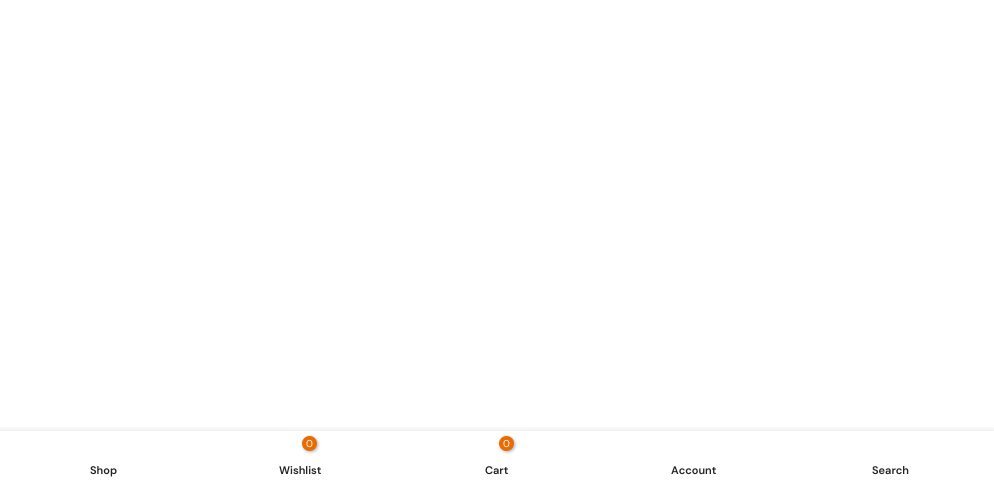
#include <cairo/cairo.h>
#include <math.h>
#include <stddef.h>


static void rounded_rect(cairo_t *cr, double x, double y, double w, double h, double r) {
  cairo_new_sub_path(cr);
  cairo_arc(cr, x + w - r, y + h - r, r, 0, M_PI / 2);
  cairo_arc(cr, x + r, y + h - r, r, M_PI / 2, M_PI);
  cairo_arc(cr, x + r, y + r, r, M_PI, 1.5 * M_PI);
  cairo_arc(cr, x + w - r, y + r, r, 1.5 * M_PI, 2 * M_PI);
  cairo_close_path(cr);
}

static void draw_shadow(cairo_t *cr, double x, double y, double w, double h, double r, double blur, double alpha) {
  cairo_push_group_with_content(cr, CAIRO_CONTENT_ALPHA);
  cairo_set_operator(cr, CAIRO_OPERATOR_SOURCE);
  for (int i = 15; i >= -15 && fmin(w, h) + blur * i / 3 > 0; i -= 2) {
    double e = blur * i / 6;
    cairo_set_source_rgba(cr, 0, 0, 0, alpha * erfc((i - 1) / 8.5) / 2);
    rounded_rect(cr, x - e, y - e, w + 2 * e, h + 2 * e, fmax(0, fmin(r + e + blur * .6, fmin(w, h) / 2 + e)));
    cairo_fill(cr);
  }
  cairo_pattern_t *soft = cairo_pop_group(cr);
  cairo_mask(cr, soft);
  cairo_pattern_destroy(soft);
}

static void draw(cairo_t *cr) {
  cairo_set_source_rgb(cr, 1, 1, 1);
  cairo_paint(cr);
  cairo_save(cr);
  cairo_rectangle(cr, 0, 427, 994, 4);
  cairo_clip(cr);
  cairo_set_source_rgb(cr, 0, 0, 0);
  draw_shadow(cr, 0, 431, 994, 55, 0, 4.5, 0.12);
  cairo_restore(cr);
  cairo_set_source_rgb(cr, 0, 0, 0);
  draw_shadow(cr, 303, 437, 15, 15, 7.5, 1.5, 0.3);
  cairo_set_source_rgb(cr, 233 / 255.0, 107 / 255.0, 1 / 255.0);
  cairo_arc(cr, 309.5, 443.5, 7.5, 0, 2 * M_PI);
  cairo_fill(cr);
  cairo_set_source_rgb(cr, 0, 0, 0);
  draw_shadow(cr, 500, 437, 15, 15, 7.5, 1.5, 0.3);
  cairo_set_source_rgb(cr, 233 / 255.0, 107 / 255.0, 1 / 255.0);
  cairo_arc(cr, 506.5, 443.5, 7.5, 0, 2 * M_PI);
  cairo_fill(cr);
  cairo_select_font_face(cr, "DM Sans SemiBold", CAIRO_FONT_SLANT_NORMAL, CAIRO_FONT_WEIGHT_NORMAL);
  cairo_set_font_size(cr, 11);
  cairo_set_source_rgb(cr, 34 / 255.0, 34 / 255.0, 34 / 255.0);
  cairo_move_to(cr, 90, 474);
  cairo_show_text(cr, "Shop");
  cairo_select_font_face(cr, "DM Sans", CAIRO_FONT_SLANT_NORMAL, CAIRO_FONT_WEIGHT_NORMAL);
  cairo_set_font_size(cr, 10);
  cairo_set_source_rgb(cr, 1, 1, 1);
  cairo_move_to(cr, 306, 447);
  cairo_show_text(cr, "0");
  cairo_select_font_face(cr, "DM Sans SemiBold", CAIRO_FONT_SLANT_NORMAL, CAIRO_FONT_WEIGHT_NORMAL);
  cairo_set_font_size(cr, 11);
  cairo_set_source_rgb(cr, 34 / 255.0, 34 / 255.0, 34 / 255.0);
  cairo_move_to(cr, 279, 474);
  cairo_show_text(cr, "Wishlist");
  cairo_select_font_face(cr, "DM Sans", CAIRO_FONT_SLANT_NORMAL, CAIRO_FONT_WEIGHT_NORMAL);
  cairo_set_font_size(cr, 10);
  cairo_set_source_rgb(cr, 1, 1, 1);
  cairo_move_to(cr, 503, 447);
  cairo_show_text(cr, "0");
  cairo_select_font_face(cr, "DM Sans SemiBold", CAIRO_FONT_SLANT_NORMAL, CAIRO_FONT_WEIGHT_NORMAL);
  cairo_set_font_size(cr, 11);
  cairo_set_source_rgb(cr, 34 / 255.0, 34 / 255.0, 34 / 255.0);
  cairo_move_to(cr, 485, 474);
  cairo_show_text(cr, "Cart");
  cairo_move_to(cr, 671, 474);
  cairo_show_text(cr, "Account");
  cairo_move_to(cr, 872, 474);
  cairo_show_text(cr, "Search");
}

int main(void) {
  cairo_surface_t *surface = cairo_image_surface_create(CAIRO_FORMAT_RGB24, 994, 486);
  cairo_t *cr = cairo_create(surface);
  cairo_font_options_t *options = cairo_font_options_create();
  cairo_font_options_set_hint_metrics(options, CAIRO_HINT_METRICS_OFF);
  cairo_font_options_set_hint_style(options, CAIRO_HINT_STYLE_NONE);
  cairo_set_font_options(cr, options);
  cairo_set_miter_limit(cr, 4);
  draw(cr);
  cairo_surface_write_to_png(surface, "out.png");
  cairo_font_options_destroy(options);
  cairo_destroy(cr);
  cairo_surface_destroy(surface);
  return 0;
}
